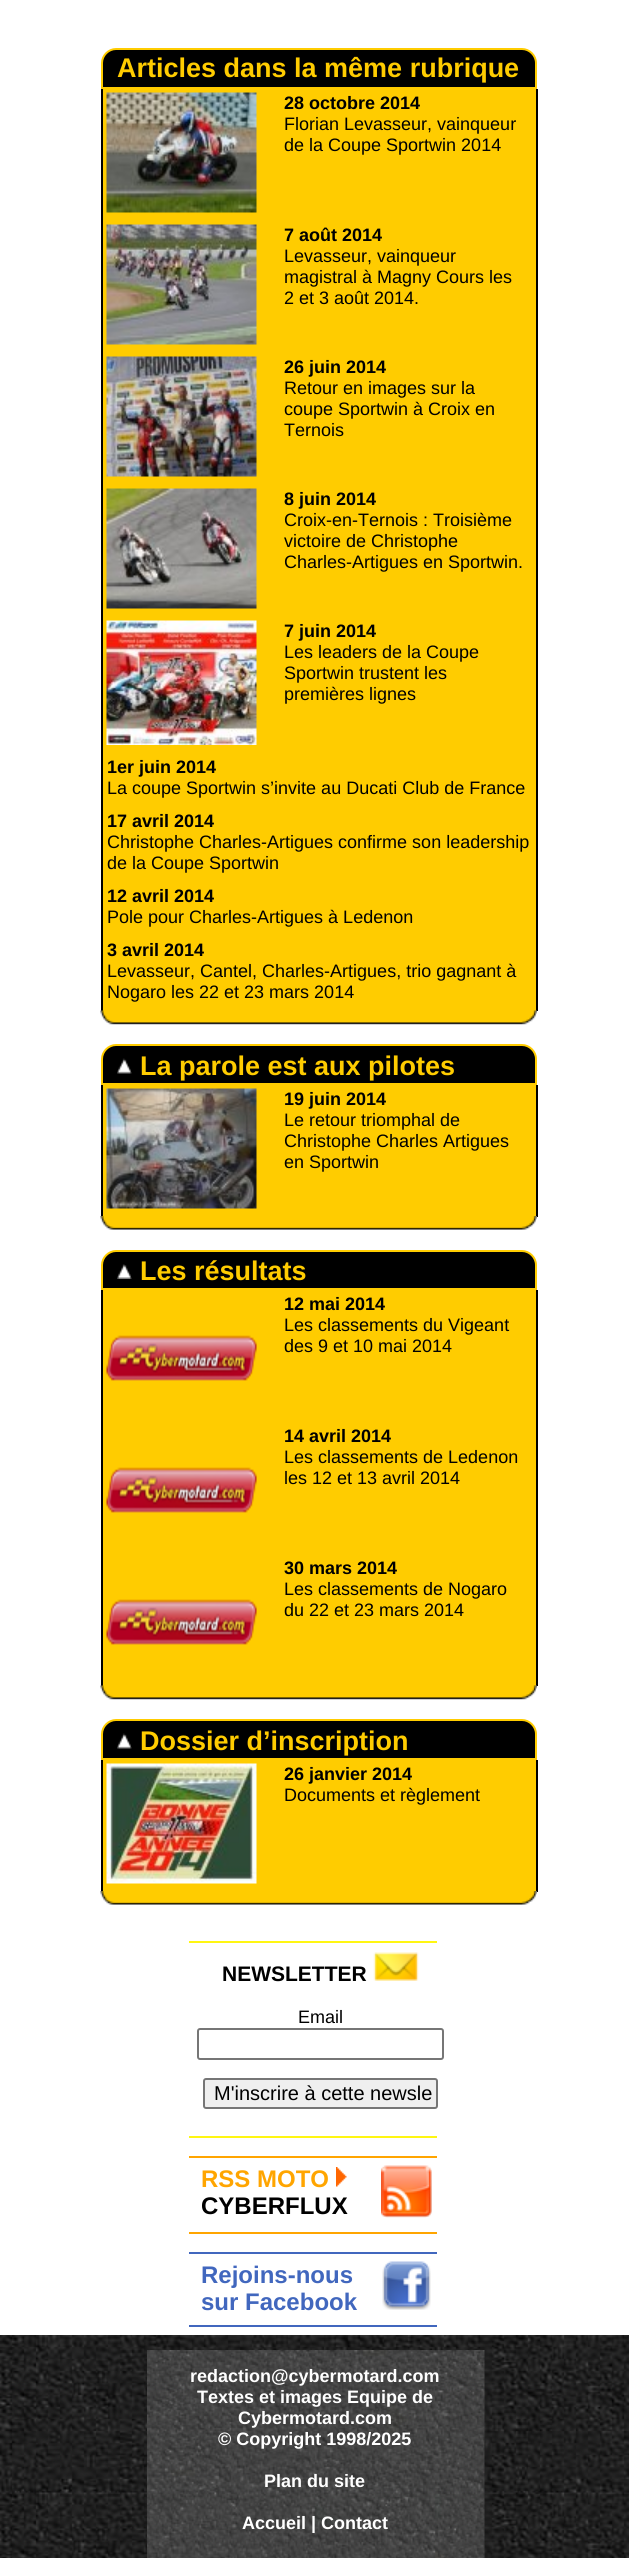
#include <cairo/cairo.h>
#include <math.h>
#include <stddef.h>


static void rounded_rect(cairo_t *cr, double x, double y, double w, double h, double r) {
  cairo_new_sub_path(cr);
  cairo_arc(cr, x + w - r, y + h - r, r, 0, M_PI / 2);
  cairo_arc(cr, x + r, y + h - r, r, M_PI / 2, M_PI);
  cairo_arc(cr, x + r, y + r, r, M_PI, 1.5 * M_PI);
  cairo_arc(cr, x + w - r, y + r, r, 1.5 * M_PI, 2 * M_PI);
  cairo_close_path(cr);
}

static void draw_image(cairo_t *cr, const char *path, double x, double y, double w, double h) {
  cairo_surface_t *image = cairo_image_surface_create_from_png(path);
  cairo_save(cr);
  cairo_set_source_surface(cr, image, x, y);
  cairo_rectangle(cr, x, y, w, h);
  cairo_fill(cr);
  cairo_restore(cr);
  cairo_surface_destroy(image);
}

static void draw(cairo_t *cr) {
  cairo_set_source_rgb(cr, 1, 1, 1);
  cairo_paint(cr);
  cairo_set_source_rgb(cr, 0, 0, 0);
  cairo_new_path(cr);
  cairo_move_to(cr, 116, 49);
  cairo_line_to(cr, 522, 49);
  cairo_curve_to(cr, 529.5, 49, 536, 55.5, 536, 63);
  cairo_line_to(cr, 536, 88);
  cairo_line_to(cr, 102, 88);
  cairo_line_to(cr, 102, 63);
  cairo_curve_to(cr, 102, 55.5, 108.5, 49, 116, 49);
  cairo_close_path(cr);
  cairo_fill_preserve(cr);
  cairo_set_source_rgb(cr, 1, 204 / 255.0, 0);
  cairo_stroke(cr);
  cairo_rectangle(cr, 103, 89, 433, 922);
  cairo_fill(cr);
  cairo_set_source_rgb(cr, 0, 0, 0);
  cairo_rectangle(cr, 536, 89, 2, 922);
  cairo_fill(cr);
  cairo_rectangle(cr, 101, 89, 2, 922);
  cairo_fill(cr);
  draw_image(cr, "images/1.png", 106, 92, 151, 121);
  draw_image(cr, "images/2.png", 106, 224, 151, 121);
  draw_image(cr, "images/3.png", 106, 356, 151, 121);
  draw_image(cr, "images/4.png", 106, 488, 151, 121);
  draw_image(cr, "images/5.png", 106, 620, 151, 125);
  draw_image(cr, "images/6.png", 100, 1010, 437, 15);
  cairo_new_path(cr);
  cairo_move_to(cr, 116, 1045);
  cairo_line_to(cr, 522, 1045);
  cairo_curve_to(cr, 529.5, 1045, 536, 1051.5, 536, 1059);
  cairo_line_to(cr, 536, 1084);
  cairo_line_to(cr, 102, 1084);
  cairo_line_to(cr, 102, 1059);
  cairo_curve_to(cr, 102, 1051.5, 108.5, 1045, 116, 1045);
  cairo_close_path(cr);
  cairo_fill_preserve(cr);
  cairo_set_source_rgb(cr, 1, 204 / 255.0, 0);
  cairo_stroke(cr);
  draw_image(cr, "images/7.png", 117, 1058, 15, 16);
  cairo_rectangle(cr, 103, 1085, 433, 131);
  cairo_fill(cr);
  cairo_set_source_rgb(cr, 0, 0, 0);
  cairo_rectangle(cr, 536, 1085, 2, 132);
  cairo_fill(cr);
  cairo_rectangle(cr, 101, 1085, 2, 132);
  cairo_fill(cr);
  draw_image(cr, "images/8.png", 106, 1088, 151, 121);
  draw_image(cr, "images/9.png", 100, 1216, 437, 14);
  cairo_new_path(cr);
  cairo_move_to(cr, 116, 1251);
  cairo_line_to(cr, 522, 1251);
  cairo_curve_to(cr, 529.5, 1251, 536, 1257.5, 536, 1265);
  cairo_line_to(cr, 536, 1289);
  cairo_line_to(cr, 102, 1289);
  cairo_line_to(cr, 102, 1265);
  cairo_curve_to(cr, 102, 1257.5, 108.5, 1251, 116, 1251);
  cairo_close_path(cr);
  cairo_fill_preserve(cr);
  cairo_set_source_rgb(cr, 1, 204 / 255.0, 0);
  cairo_stroke(cr);
  draw_image(cr, "images/10.png", 117, 1264, 15, 15);
  cairo_rectangle(cr, 103, 1290, 433, 396);
  cairo_fill(cr);
  cairo_set_source_rgb(cr, 0, 0, 0);
  cairo_rectangle(cr, 536, 1290, 2, 396);
  cairo_fill(cr);
  cairo_rectangle(cr, 101, 1290, 2, 396);
  cairo_fill(cr);
  draw_image(cr, "images/11.png", 106, 1335, 151, 46);
  draw_image(cr, "images/11.png", 106, 1467, 151, 46);
  draw_image(cr, "images/11.png", 106, 1599, 151, 46);
  draw_image(cr, "images/6.png", 100, 1685, 437, 15);
  cairo_new_path(cr);
  cairo_move_to(cr, 116, 1720);
  cairo_line_to(cr, 522, 1720);
  cairo_curve_to(cr, 529.5, 1720, 536, 1726.5, 536, 1734);
  cairo_line_to(cr, 536, 1759);
  cairo_line_to(cr, 102, 1759);
  cairo_line_to(cr, 102, 1734);
  cairo_curve_to(cr, 102, 1726.5, 108.5, 1720, 116, 1720);
  cairo_close_path(cr);
  cairo_fill_preserve(cr);
  cairo_set_source_rgb(cr, 1, 204 / 255.0, 0);
  cairo_stroke(cr);
  draw_image(cr, "images/7.png", 117, 1733, 15, 16);
  cairo_rectangle(cr, 103, 1760, 433, 131);
  cairo_fill(cr);
  cairo_set_source_rgb(cr, 0, 0, 0);
  cairo_rectangle(cr, 536, 1760, 2, 132);
  cairo_fill(cr);
  cairo_rectangle(cr, 101, 1760, 2, 132);
  cairo_fill(cr);
  draw_image(cr, "images/12.png", 106, 1763, 151, 121);
  draw_image(cr, "images/9.png", 100, 1891, 437, 14);
  cairo_set_source_rgb(cr, 1, 246 / 255.0, 18 / 255.0);
  cairo_rectangle(cr, 189, 1941, 248, 2);
  cairo_fill(cr);
  draw_image(cr, "images/13.png", 373, 1952, 46, 29);
  rounded_rect(cr, 198, 2029, 245, 30, 2);
  cairo_set_source_rgb(cr, 118 / 255.0, 118 / 255.0, 118 / 255.0);
  cairo_stroke(cr);
  cairo_set_source_rgb(cr, 239 / 255.0, 239 / 255.0, 239 / 255.0);
  rounded_rect(cr, 204, 2079, 233, 29, 2);
  cairo_fill_preserve(cr);
  cairo_set_source_rgb(cr, 118 / 255.0, 118 / 255.0, 118 / 255.0);
  cairo_stroke(cr);
  cairo_set_source_rgb(cr, 1, 246 / 255.0, 18 / 255.0);
  cairo_rectangle(cr, 189, 2136, 248, 2);
  cairo_fill(cr);
  cairo_set_source_rgb(cr, 1, 165 / 255.0, 0);
  cairo_rectangle(cr, 189, 2156, 248, 2);
  cairo_fill(cr);
  draw_image(cr, "images/14.png", 336, 2167, 11, 20);
  draw_image(cr, "images/15.png", 381, 2165, 51, 53);
  cairo_rectangle(cr, 189, 2232, 248, 2);
  cairo_fill(cr);
  cairo_set_source_rgb(cr, 65 / 255.0, 103 / 255.0, 190 / 255.0);
  cairo_rectangle(cr, 189, 2252, 248, 2);
  cairo_fill(cr);
  draw_image(cr, "images/16.png", 382, 2261, 49, 49);
  cairo_rectangle(cr, 189, 2325, 248, 2);
  cairo_fill(cr);
  draw_image(cr, "images/17.png", 0, 2335, 629, 223);
  draw_image(cr, "images/18.png", 147, 2350, 338, 208);
  cairo_select_font_face(cr, "Liberation Sans", CAIRO_FONT_SLANT_NORMAL, CAIRO_FONT_WEIGHT_BOLD);
  cairo_set_font_size(cr, 27);
  cairo_set_source_rgb(cr, 1, 204 / 255.0, 0);
  cairo_move_to(cr, 117, 77);
  cairo_show_text(cr, "Articles dans la même rubrique");
  cairo_set_font_size(cr, 18);
  cairo_set_source_rgb(cr, 0, 0, 0);
  cairo_move_to(cr, 284, 109);
  cairo_show_text(cr, "28 octobre 2014");
  cairo_select_font_face(cr, "Liberation Sans", CAIRO_FONT_SLANT_NORMAL, CAIRO_FONT_WEIGHT_NORMAL);
  cairo_move_to(cr, 284, 130);
  cairo_show_text(cr, "Florian Levasseur, vainqueur");
  cairo_move_to(cr, 284, 151);
  cairo_show_text(cr, "de la Coupe Sportwin 2014");
  cairo_select_font_face(cr, "Liberation Sans", CAIRO_FONT_SLANT_NORMAL, CAIRO_FONT_WEIGHT_BOLD);
  cairo_move_to(cr, 284, 241);
  cairo_show_text(cr, "7 août 2014");
  cairo_select_font_face(cr, "Liberation Sans", CAIRO_FONT_SLANT_NORMAL, CAIRO_FONT_WEIGHT_NORMAL);
  cairo_move_to(cr, 284, 262);
  cairo_show_text(cr, "Levasseur, vainqueur");
  cairo_move_to(cr, 284, 283);
  cairo_show_text(cr, "magistral à Magny Cours les");
  cairo_move_to(cr, 284, 304);
  cairo_show_text(cr, "2 et 3 août 2014.");
  cairo_select_font_face(cr, "Liberation Sans", CAIRO_FONT_SLANT_NORMAL, CAIRO_FONT_WEIGHT_BOLD);
  cairo_move_to(cr, 284, 373);
  cairo_show_text(cr, "26 juin 2014");
  cairo_select_font_face(cr, "Liberation Sans", CAIRO_FONT_SLANT_NORMAL, CAIRO_FONT_WEIGHT_NORMAL);
  cairo_move_to(cr, 284, 394);
  cairo_show_text(cr, "Retour en images sur la");
  cairo_move_to(cr, 284, 415);
  cairo_show_text(cr, "coupe Sportwin à Croix en");
  cairo_move_to(cr, 284, 436);
  cairo_show_text(cr, "Ternois");
  cairo_select_font_face(cr, "Liberation Sans", CAIRO_FONT_SLANT_NORMAL, CAIRO_FONT_WEIGHT_BOLD);
  cairo_move_to(cr, 284, 505);
  cairo_show_text(cr, "8 juin 2014");
  cairo_select_font_face(cr, "Liberation Sans", CAIRO_FONT_SLANT_NORMAL, CAIRO_FONT_WEIGHT_NORMAL);
  cairo_move_to(cr, 284, 526);
  cairo_show_text(cr, "Croix-en-Ternois : Troisième");
  cairo_move_to(cr, 284, 547);
  cairo_show_text(cr, "victoire de Christophe");
  cairo_move_to(cr, 284, 568);
  cairo_show_text(cr, "Charles-Artigues en Sportwin.");
  cairo_select_font_face(cr, "Liberation Sans", CAIRO_FONT_SLANT_NORMAL, CAIRO_FONT_WEIGHT_BOLD);
  cairo_move_to(cr, 284, 637);
  cairo_show_text(cr, "7 juin 2014");
  cairo_select_font_face(cr, "Liberation Sans", CAIRO_FONT_SLANT_NORMAL, CAIRO_FONT_WEIGHT_NORMAL);
  cairo_move_to(cr, 284, 658);
  cairo_show_text(cr, "Les leaders de la Coupe");
  cairo_move_to(cr, 284, 679);
  cairo_show_text(cr, "Sportwin trustent les");
  cairo_move_to(cr, 284, 700);
  cairo_show_text(cr, "premières lignes");
  cairo_select_font_face(cr, "Liberation Sans", CAIRO_FONT_SLANT_NORMAL, CAIRO_FONT_WEIGHT_BOLD);
  cairo_move_to(cr, 107, 773);
  cairo_show_text(cr, "1er juin 2014");
  cairo_select_font_face(cr, "Liberation Sans", CAIRO_FONT_SLANT_NORMAL, CAIRO_FONT_WEIGHT_NORMAL);
  cairo_move_to(cr, 107, 794);
  cairo_show_text(cr, "La coupe Sportwin s’invite au Ducati Club de France");
  cairo_select_font_face(cr, "Liberation Sans", CAIRO_FONT_SLANT_NORMAL, CAIRO_FONT_WEIGHT_BOLD);
  cairo_move_to(cr, 107, 827);
  cairo_show_text(cr, "17 avril 2014");
  cairo_select_font_face(cr, "Liberation Sans", CAIRO_FONT_SLANT_NORMAL, CAIRO_FONT_WEIGHT_NORMAL);
  cairo_move_to(cr, 107, 848);
  cairo_show_text(cr, "Christophe Charles-Artigues confirme son leadership");
  cairo_move_to(cr, 107, 869);
  cairo_show_text(cr, "de la Coupe Sportwin");
  cairo_select_font_face(cr, "Liberation Sans", CAIRO_FONT_SLANT_NORMAL, CAIRO_FONT_WEIGHT_BOLD);
  cairo_move_to(cr, 107, 902);
  cairo_show_text(cr, "12 avril 2014");
  cairo_select_font_face(cr, "Liberation Sans", CAIRO_FONT_SLANT_NORMAL, CAIRO_FONT_WEIGHT_NORMAL);
  cairo_move_to(cr, 107, 923);
  cairo_show_text(cr, "Pole pour Charles-Artigues à Ledenon");
  cairo_select_font_face(cr, "Liberation Sans", CAIRO_FONT_SLANT_NORMAL, CAIRO_FONT_WEIGHT_BOLD);
  cairo_move_to(cr, 107, 956);
  cairo_show_text(cr, "3 avril 2014");
  cairo_select_font_face(cr, "Liberation Sans", CAIRO_FONT_SLANT_NORMAL, CAIRO_FONT_WEIGHT_NORMAL);
  cairo_move_to(cr, 107, 977);
  cairo_show_text(cr, "Levasseur, Cantel, Charles-Artigues, trio gagnant à");
  cairo_move_to(cr, 107, 998);
  cairo_show_text(cr, "Nogaro les 22 et 23 mars 2014");
  cairo_select_font_face(cr, "Liberation Sans", CAIRO_FONT_SLANT_NORMAL, CAIRO_FONT_WEIGHT_BOLD);
  cairo_set_font_size(cr, 27);
  cairo_set_source_rgb(cr, 1, 204 / 255.0, 0);
  cairo_move_to(cr, 140, 1075);
  cairo_show_text(cr, "La parole est aux pilotes");
  cairo_set_font_size(cr, 18);
  cairo_set_source_rgb(cr, 0, 0, 0);
  cairo_move_to(cr, 284, 1105);
  cairo_show_text(cr, "19 juin 2014");
  cairo_select_font_face(cr, "Liberation Sans", CAIRO_FONT_SLANT_NORMAL, CAIRO_FONT_WEIGHT_NORMAL);
  cairo_move_to(cr, 284, 1126);
  cairo_show_text(cr, "Le retour triomphal de");
  cairo_move_to(cr, 284, 1147);
  cairo_show_text(cr, "Christophe Charles Artigues");
  cairo_move_to(cr, 284, 1168);
  cairo_show_text(cr, "en Sportwin");
  cairo_select_font_face(cr, "Liberation Sans", CAIRO_FONT_SLANT_NORMAL, CAIRO_FONT_WEIGHT_BOLD);
  cairo_set_font_size(cr, 27);
  cairo_set_source_rgb(cr, 1, 204 / 255.0, 0);
  cairo_move_to(cr, 140, 1280);
  cairo_show_text(cr, "Les résultats");
  cairo_set_font_size(cr, 18);
  cairo_set_source_rgb(cr, 0, 0, 0);
  cairo_move_to(cr, 284, 1310);
  cairo_show_text(cr, "12 mai 2014");
  cairo_select_font_face(cr, "Liberation Sans", CAIRO_FONT_SLANT_NORMAL, CAIRO_FONT_WEIGHT_NORMAL);
  cairo_move_to(cr, 284, 1331);
  cairo_show_text(cr, "Les classements du Vigeant");
  cairo_move_to(cr, 284, 1352);
  cairo_show_text(cr, "des 9 et 10 mai 2014");
  cairo_select_font_face(cr, "Liberation Sans", CAIRO_FONT_SLANT_NORMAL, CAIRO_FONT_WEIGHT_BOLD);
  cairo_move_to(cr, 284, 1442);
  cairo_show_text(cr, "14 avril 2014");
  cairo_select_font_face(cr, "Liberation Sans", CAIRO_FONT_SLANT_NORMAL, CAIRO_FONT_WEIGHT_NORMAL);
  cairo_move_to(cr, 284, 1463);
  cairo_show_text(cr, "Les classements de Ledenon");
  cairo_move_to(cr, 284, 1484);
  cairo_show_text(cr, "les 12 et 13 avril 2014");
  cairo_select_font_face(cr, "Liberation Sans", CAIRO_FONT_SLANT_NORMAL, CAIRO_FONT_WEIGHT_BOLD);
  cairo_move_to(cr, 284, 1574);
  cairo_show_text(cr, "30 mars 2014");
  cairo_select_font_face(cr, "Liberation Sans", CAIRO_FONT_SLANT_NORMAL, CAIRO_FONT_WEIGHT_NORMAL);
  cairo_move_to(cr, 284, 1595);
  cairo_show_text(cr, "Les classements de Nogaro");
  cairo_move_to(cr, 284, 1616);
  cairo_show_text(cr, "du 22 et 23 mars 2014");
  cairo_select_font_face(cr, "Liberation Sans", CAIRO_FONT_SLANT_NORMAL, CAIRO_FONT_WEIGHT_BOLD);
  cairo_set_font_size(cr, 27);
  cairo_set_source_rgb(cr, 1, 204 / 255.0, 0);
  cairo_move_to(cr, 140, 1750);
  cairo_show_text(cr, "Dossier d’inscription");
  cairo_set_font_size(cr, 18);
  cairo_set_source_rgb(cr, 0, 0, 0);
  cairo_move_to(cr, 284, 1780);
  cairo_show_text(cr, "26 janvier 2014");
  cairo_select_font_face(cr, "Liberation Sans", CAIRO_FONT_SLANT_NORMAL, CAIRO_FONT_WEIGHT_NORMAL);
  cairo_move_to(cr, 284, 1801);
  cairo_show_text(cr, "Documents et règlement");
  cairo_select_font_face(cr, "Liberation Sans", CAIRO_FONT_SLANT_NORMAL, CAIRO_FONT_WEIGHT_BOLD);
  cairo_set_font_size(cr, 21);
  cairo_move_to(cr, 222, 1981);
  cairo_show_text(cr, "NEWSLETTER");
  cairo_select_font_face(cr, "Liberation Sans", CAIRO_FONT_SLANT_NORMAL, CAIRO_FONT_WEIGHT_NORMAL);
  cairo_set_font_size(cr, 18);
  cairo_move_to(cr, 298, 2023);
  cairo_show_text(cr, "Email");
  cairo_set_font_size(cr, 20);
  cairo_move_to(cr, 214, 2100);
  cairo_show_text(cr, "M'inscrire à cette newsle");
  cairo_select_font_face(cr, "Liberation Sans", CAIRO_FONT_SLANT_NORMAL, CAIRO_FONT_WEIGHT_BOLD);
  cairo_set_font_size(cr, 24);
  cairo_set_source_rgb(cr, 1, 165 / 255.0, 0);
  cairo_move_to(cr, 201, 2187);
  cairo_show_text(cr, "RSS MOTO");
  cairo_set_source_rgb(cr, 0, 0, 0);
  cairo_move_to(cr, 201, 2214);
  cairo_show_text(cr, "CYBERFLUX");
  cairo_set_source_rgb(cr, 65 / 255.0, 103 / 255.0, 190 / 255.0);
  cairo_move_to(cr, 201, 2283);
  cairo_show_text(cr, "Rejoins-nous");
  cairo_move_to(cr, 201, 2310);
  cairo_show_text(cr, "sur Facebook");
  cairo_set_font_size(cr, 18);
  cairo_set_source_rgb(cr, 1, 1, 1);
  cairo_move_to(cr, 190, 2382);
  cairo_show_text(cr, "redaction@cybermotard.com");
  cairo_move_to(cr, 197, 2403);
  cairo_show_text(cr, "Textes et images Equipe de");
  cairo_move_to(cr, 238, 2424);
  cairo_show_text(cr, "Cybermotard.com");
  cairo_move_to(cr, 218, 2445);
  cairo_show_text(cr, "© Copyright 1998/2025");
  cairo_move_to(cr, 264, 2487);
  cairo_show_text(cr, "Plan du site");
  cairo_move_to(cr, 242, 2529);
  cairo_show_text(cr, "Accueil | Contact");
}

int main(void) {
  cairo_surface_t *surface = cairo_image_surface_create(CAIRO_FORMAT_RGB24, 629, 2558);
  cairo_t *cr = cairo_create(surface);
  cairo_font_options_t *options = cairo_font_options_create();
  cairo_font_options_set_hint_metrics(options, CAIRO_HINT_METRICS_OFF);
  cairo_font_options_set_hint_style(options, CAIRO_HINT_STYLE_NONE);
  cairo_set_font_options(cr, options);
  cairo_set_miter_limit(cr, 4);
  draw(cr);
  cairo_surface_write_to_png(surface, "out.png");
  cairo_font_options_destroy(options);
  cairo_destroy(cr);
  cairo_surface_destroy(surface);
  return 0;
}
